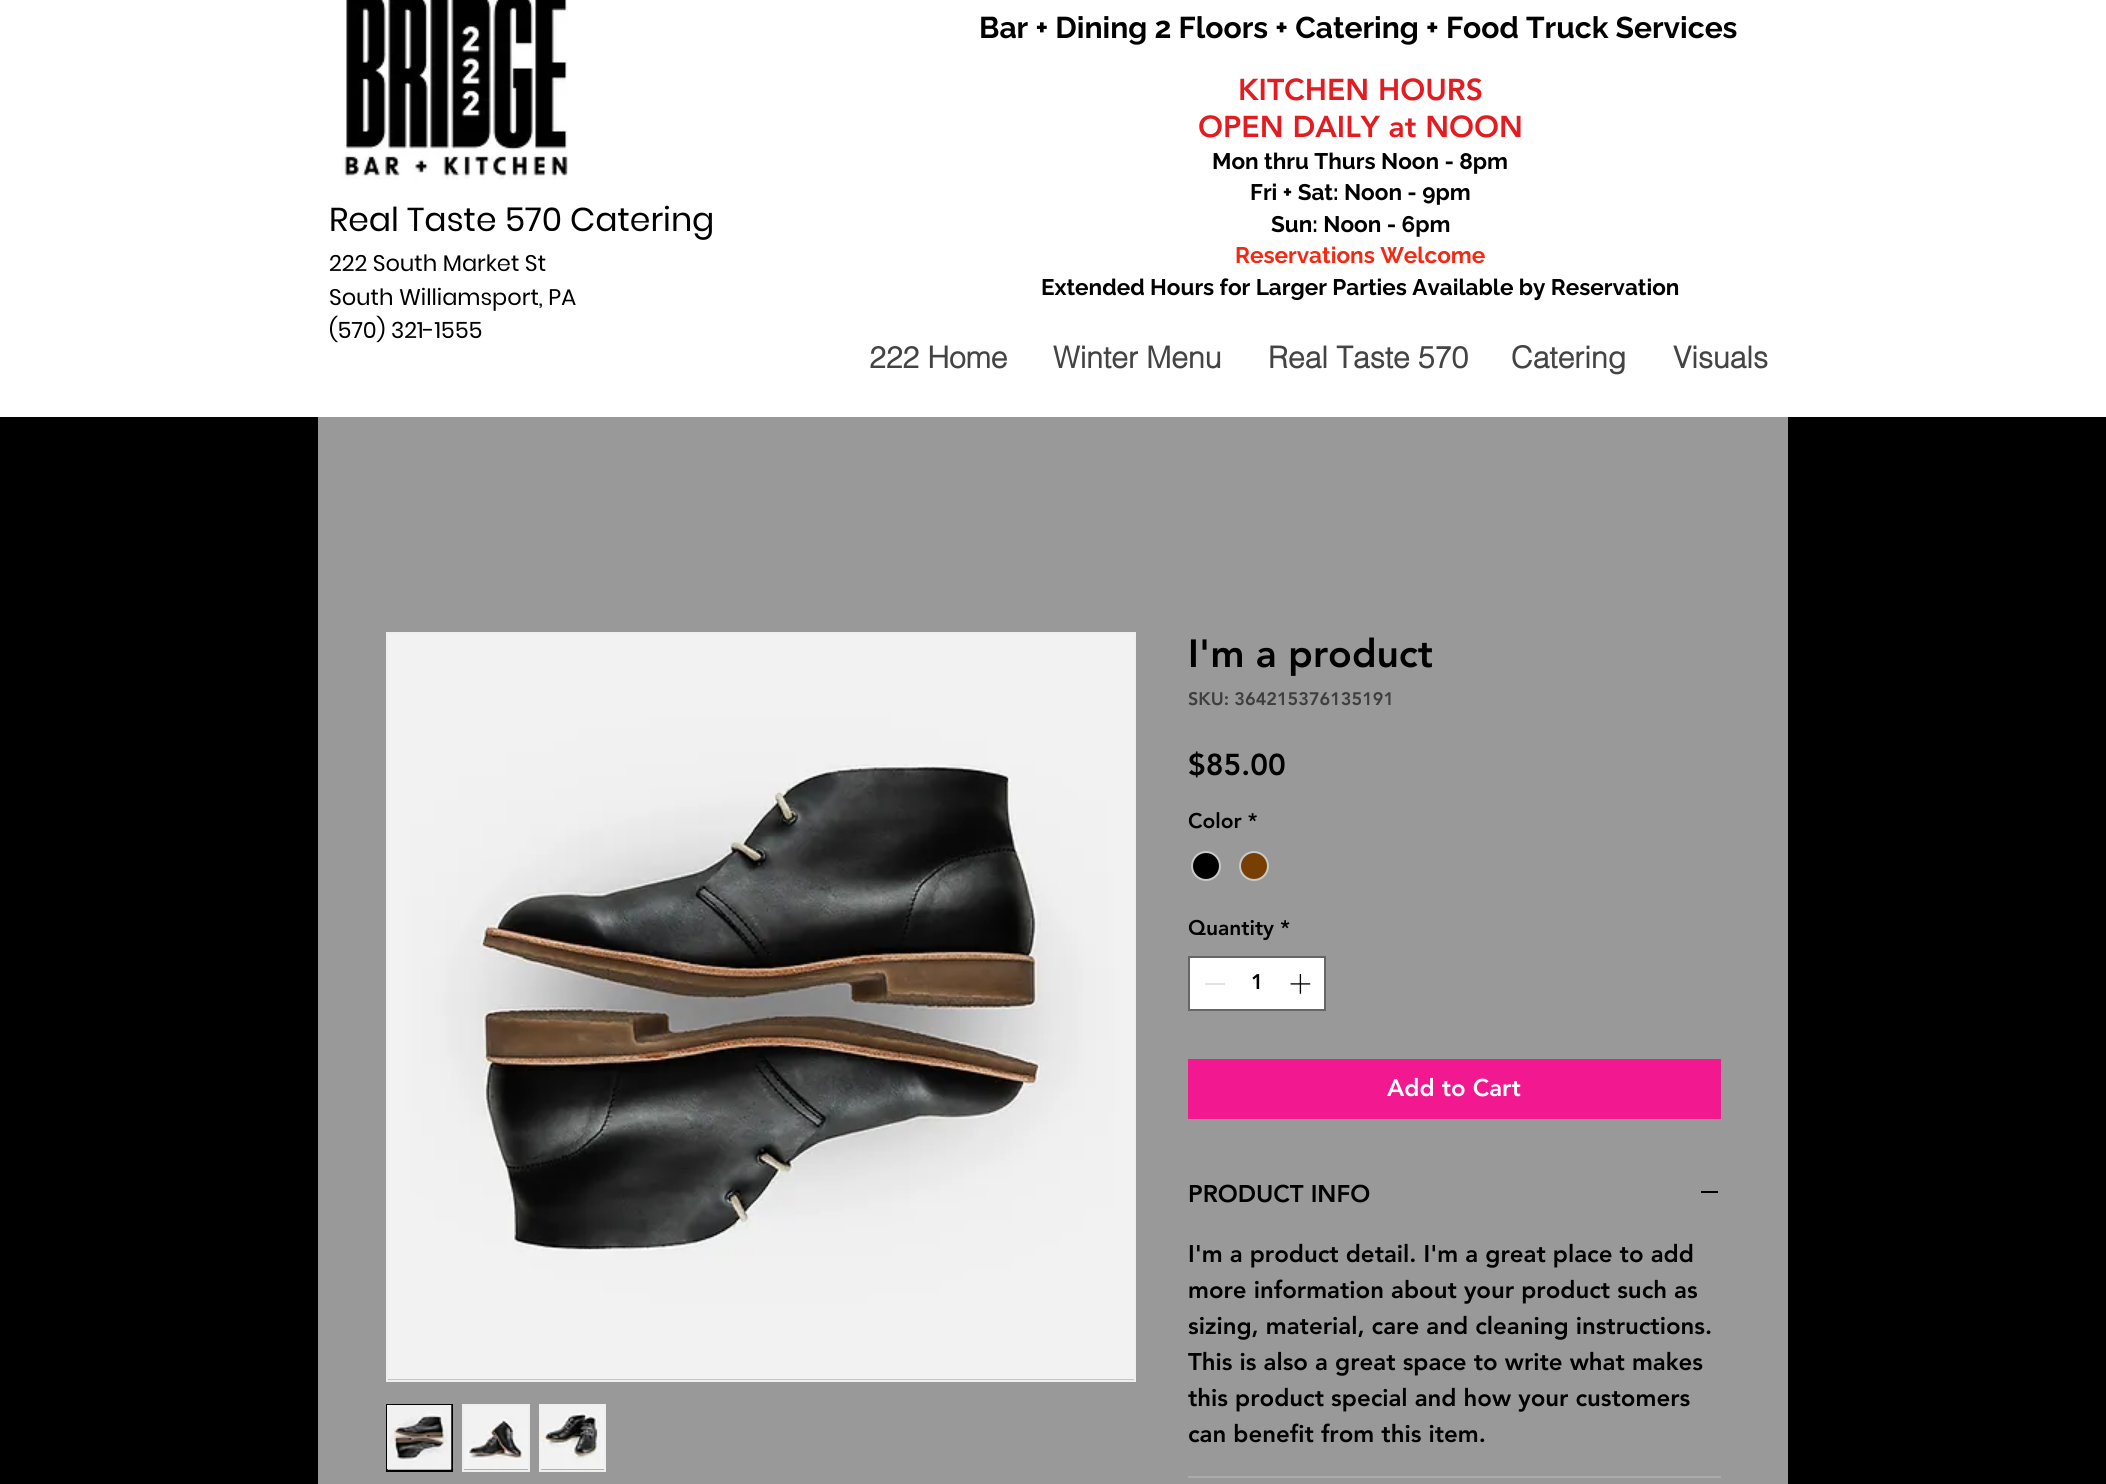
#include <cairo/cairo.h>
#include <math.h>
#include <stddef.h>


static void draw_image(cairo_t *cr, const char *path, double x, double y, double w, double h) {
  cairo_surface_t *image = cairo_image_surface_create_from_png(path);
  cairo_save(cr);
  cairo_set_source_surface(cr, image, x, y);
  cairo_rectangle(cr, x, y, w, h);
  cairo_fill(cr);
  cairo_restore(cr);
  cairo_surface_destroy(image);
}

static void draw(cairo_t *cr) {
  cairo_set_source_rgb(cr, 0, 0, 0);
  cairo_paint(cr);
  cairo_set_source_rgb(cr, 1, 1, 1);
  cairo_rectangle(cr, 0, 0, 2106, 417);
  cairo_fill(cr);
  draw_image(cr, "images/1.png", 341, 0, 227, 180);
  cairo_set_source_rgb(cr, 153 / 255.0, 153 / 255.0, 153 / 255.0);
  cairo_rectangle(cr, 318, 417, 1470, 1067);
  cairo_fill(cr);
  cairo_rectangle(cr, 387, 633, 748, 748);
  cairo_set_source_rgb(cr, 239 / 255.0, 239 / 255.0, 239 / 255.0);
  cairo_stroke(cr);
  draw_image(cr, "images/2.png", 388, 634, 746, 746);
  cairo_rectangle(cr, 387, 1405, 65, 66);
  cairo_set_source_rgb(cr, 0, 0, 0);
  cairo_stroke(cr);
  draw_image(cr, "images/3.png", 387, 1405, 65, 65);
  cairo_rectangle(cr, 463, 1405, 66, 66);
  cairo_set_source_rgb(cr, 239 / 255.0, 239 / 255.0, 239 / 255.0);
  cairo_stroke(cr);
  draw_image(cr, "images/4.png", 464, 1406, 64, 64);
  cairo_rectangle(cr, 540, 1405, 65, 66);
  cairo_stroke(cr);
  draw_image(cr, "images/5.png", 540, 1406, 64, 64);
  cairo_set_source_rgb(cr, 0, 0, 0);
  cairo_arc(cr, 1206, 866, 14, 0, 2 * M_PI);
  cairo_fill_preserve(cr);
  cairo_set_source_rgb(cr, 201 / 255.0, 201 / 255.0, 201 / 255.0);
  cairo_stroke(cr);
  cairo_set_source_rgb(cr, 120 / 255.0, 63 / 255.0, 4 / 255.0);
  cairo_arc(cr, 1254, 866, 14, 0, 2 * M_PI);
  cairo_fill_preserve(cr);
  cairo_set_source_rgb(cr, 201 / 255.0, 201 / 255.0, 201 / 255.0);
  cairo_stroke(cr);
  cairo_set_source_rgb(cr, 1, 1, 1);
  cairo_rectangle(cr, 1189, 957, 136, 53);
  cairo_fill_preserve(cr);
  cairo_set_source_rgb(cr, 102 / 255.0, 102 / 255.0, 102 / 255.0);
  cairo_stroke(cr);
  cairo_set_source_rgb(cr, 227 / 255.0, 227 / 255.0, 227 / 255.0);
  cairo_rectangle(cr, 1205, 983, 20, 2);
  cairo_fill(cr);
  draw_image(cr, "images/6.png", 1290, 974, 21, 20);
  cairo_set_source_rgb(cr, 242 / 255.0, 24 / 255.0, 144 / 255.0);
  cairo_rectangle(cr, 1188, 1059, 533, 60);
  cairo_fill(cr);
  cairo_set_source_rgb(cr, 171 / 255.0, 171 / 255.0, 171 / 255.0);
  cairo_rectangle(cr, 1188, 1476, 533, 2);
  cairo_fill(cr);
  cairo_set_source_rgb(cr, 0, 0, 0);
  cairo_rectangle(cr, 1701, 1191, 17, 2);
  cairo_fill(cr);
  cairo_select_font_face(cr, "Raleway", CAIRO_FONT_SLANT_NORMAL, CAIRO_FONT_WEIGHT_BOLD);
  cairo_set_font_size(cr, 30);
  cairo_move_to(cr, 979, 38);
  cairo_show_text(cr, "Bar + Dining 2 Floors + Catering + Food Truck Services");
  cairo_select_font_face(cr, "Poppins", CAIRO_FONT_SLANT_NORMAL, CAIRO_FONT_WEIGHT_NORMAL);
  cairo_set_font_size(cr, 33);
  cairo_move_to(cr, 329, 231);
  cairo_show_text(cr, "Real Taste 570 Catering");
  cairo_set_font_size(cr, 22.5);
  cairo_move_to(cr, 329, 271);
  cairo_show_text(cr, "222 South Market St");
  cairo_move_to(cr, 329, 305);
  cairo_show_text(cr, "South Williamsport, PA");
  cairo_move_to(cr, 329, 338);
  cairo_show_text(cr, "(570) 321-1555");
  cairo_select_font_face(cr, "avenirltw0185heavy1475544 Black", CAIRO_FONT_SLANT_NORMAL, CAIRO_FONT_WEIGHT_NORMAL);
  cairo_set_font_size(cr, 30);
  cairo_set_source_rgb(cr, 226 / 255.0, 28 / 255.0, 33 / 255.0);
  cairo_move_to(cr, 1238, 100);
  cairo_show_text(cr, "KITCHEN HOURS");
  cairo_move_to(cr, 1198, 137);
  cairo_show_text(cr, "OPEN DAILY at NOON");
  cairo_select_font_face(cr, "Raleway", CAIRO_FONT_SLANT_NORMAL, CAIRO_FONT_WEIGHT_BOLD);
  cairo_set_font_size(cr, 22.5);
  cairo_set_source_rgb(cr, 0, 0, 0);
  cairo_move_to(cr, 1212, 169);
  cairo_show_text(cr, "Mon thru Thurs Noon - 8pm");
  cairo_move_to(cr, 1250, 200);
  cairo_show_text(cr, "Fri + Sat: Noon - 9pm");
  cairo_move_to(cr, 1271, 232);
  cairo_show_text(cr, "Sun: Noon - 6pm");
  cairo_set_source_rgb(cr, 245 / 255.0, 41 / 255.0, 17 / 255.0);
  cairo_move_to(cr, 1235, 263);
  cairo_show_text(cr, "Reservations Welcome");
  cairo_set_source_rgb(cr, 0, 0, 0);
  cairo_move_to(cr, 1041, 295);
  cairo_show_text(cr, "Extended Hours for Larger Parties Available by Reservation");
  cairo_select_font_face(cr, "helvetica", CAIRO_FONT_SLANT_NORMAL, CAIRO_FONT_WEIGHT_BOLD);
  cairo_set_font_size(cr, 30);
  cairo_set_source_rgb(cr, 68 / 255.0, 68 / 255.0, 68 / 255.0);
  cairo_move_to(cr, 869, 368);
  cairo_show_text(cr, "222 Home");
  cairo_move_to(cr, 1053, 368);
  cairo_show_text(cr, "Winter Menu");
  cairo_move_to(cr, 1268, 368);
  cairo_show_text(cr, "Real Taste 570");
  cairo_move_to(cr, 1511, 368);
  cairo_show_text(cr, "Catering");
  cairo_move_to(cr, 1673, 368);
  cairo_show_text(cr, "Visuals");
  cairo_select_font_face(cr, "avenirltw0185heavy1475544 Black", CAIRO_FONT_SLANT_NORMAL, CAIRO_FONT_WEIGHT_NORMAL);
  cairo_set_font_size(cr, 39);
  cairo_set_source_rgb(cr, 0, 0, 0);
  cairo_move_to(cr, 1188, 667);
  cairo_show_text(cr, "I'm a product");
  cairo_set_font_size(cr, 18);
  cairo_set_source_rgb(cr, 62 / 255.0, 62 / 255.0, 62 / 255.0);
  cairo_move_to(cr, 1188, 705);
  cairo_show_text(cr, "SKU: 364215376135191");
  cairo_set_font_size(cr, 30);
  cairo_set_source_rgb(cr, 0, 0, 0);
  cairo_move_to(cr, 1188, 775);
  cairo_show_text(cr, "$85.00");
  cairo_set_font_size(cr, 21);
  cairo_move_to(cr, 1188, 828);
  cairo_show_text(cr, "Color *");
  cairo_move_to(cr, 1188, 935);
  cairo_show_text(cr, "Quantity *");
  cairo_move_to(cr, 1251, 989);
  cairo_show_text(cr, "1");
  cairo_set_font_size(cr, 24);
  cairo_set_source_rgb(cr, 1, 1, 1);
  cairo_move_to(cr, 1387, 1096);
  cairo_show_text(cr, "Add to Cart");
  cairo_set_source_rgb(cr, 0, 0, 0);
  cairo_move_to(cr, 1188, 1202);
  cairo_show_text(cr, "PRODUCT INFO");
  cairo_move_to(cr, 1188, 1262);
  cairo_show_text(cr, "I'm a product detail. I'm a great place to add");
  cairo_move_to(cr, 1188, 1298);
  cairo_show_text(cr, "more information about your product such as");
  cairo_move_to(cr, 1188, 1334);
  cairo_show_text(cr, "sizing, material, care and cleaning instructions.");
  cairo_move_to(cr, 1188, 1370);
  cairo_show_text(cr, "This is also a great space to write what makes");
  cairo_move_to(cr, 1188, 1406);
  cairo_show_text(cr, "this product special and how your customers");
  cairo_move_to(cr, 1188, 1442);
  cairo_show_text(cr, "can benefit from this item.");
}

int main(void) {
  cairo_surface_t *surface = cairo_image_surface_create(CAIRO_FORMAT_RGB24, 2106, 1484);
  cairo_t *cr = cairo_create(surface);
  cairo_font_options_t *options = cairo_font_options_create();
  cairo_font_options_set_hint_metrics(options, CAIRO_HINT_METRICS_OFF);
  cairo_font_options_set_hint_style(options, CAIRO_HINT_STYLE_NONE);
  cairo_set_font_options(cr, options);
  cairo_set_miter_limit(cr, 4);
  draw(cr);
  cairo_surface_write_to_png(surface, "out.png");
  cairo_font_options_destroy(options);
  cairo_destroy(cr);
  cairo_surface_destroy(surface);
  return 0;
}
